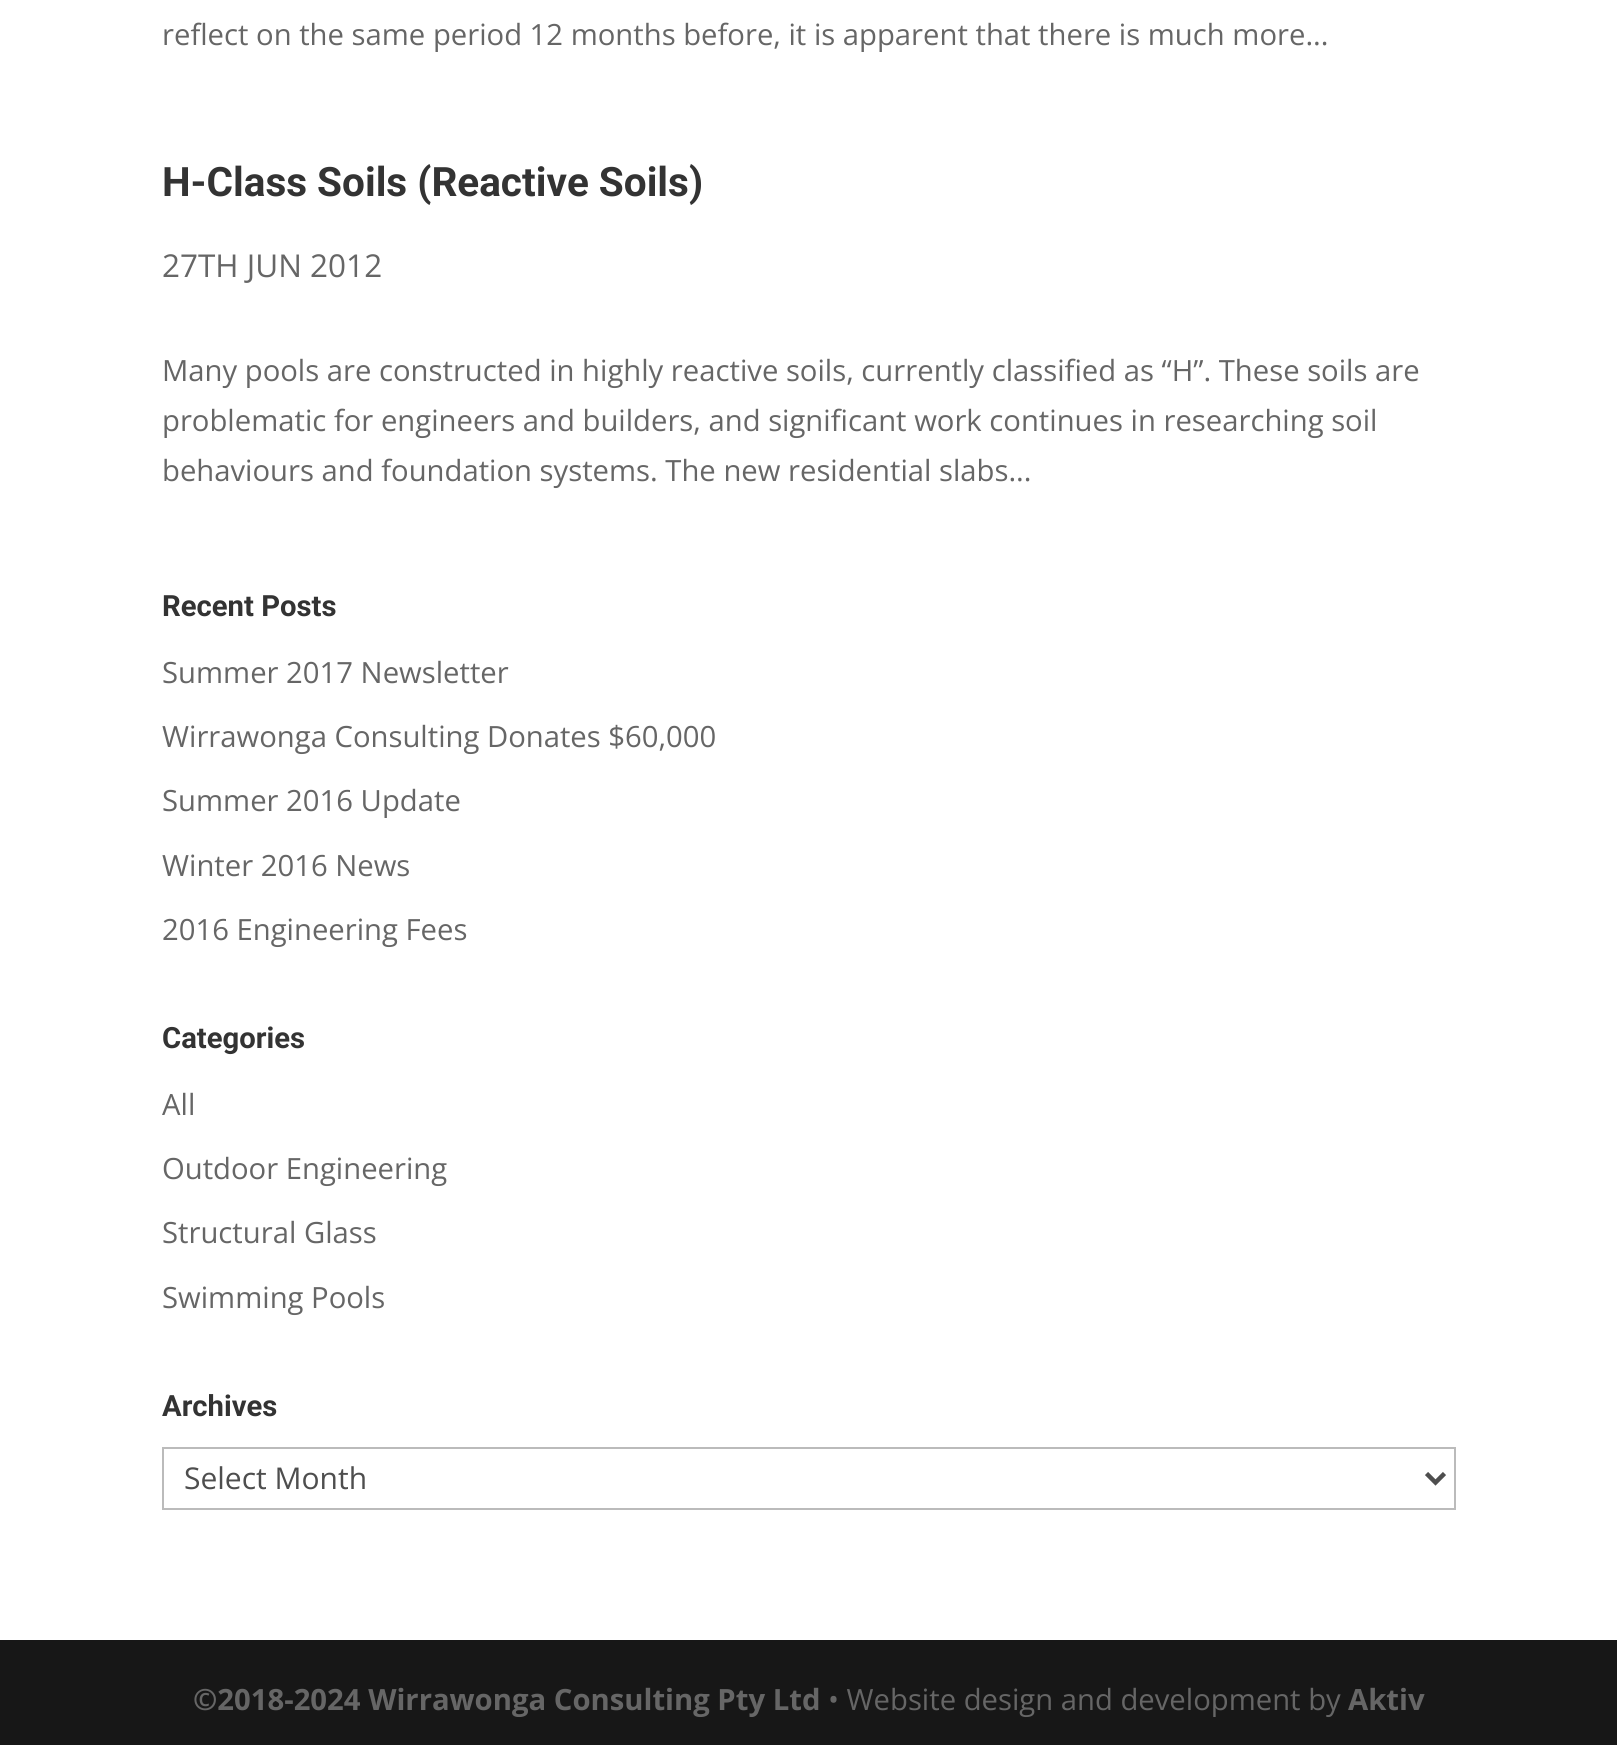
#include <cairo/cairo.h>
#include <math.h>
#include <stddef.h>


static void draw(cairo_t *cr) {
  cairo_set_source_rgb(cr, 1, 1, 1);
  cairo_paint(cr);
  cairo_rectangle(cr, 163, 1448, 1292, 61);
  cairo_set_source_rgb(cr, 187 / 255.0, 187 / 255.0, 187 / 255.0);
  cairo_stroke(cr);
  cairo_new_path(cr);
  cairo_move_to(cr, 1426.5, 1473.5);
  cairo_line_to(cr, 1435.5, 1482.5);
  cairo_line_to(cr, 1444.5, 1473.5);
  cairo_set_source_rgb(cr, 78 / 255.0, 78 / 255.0, 78 / 255.0);
  cairo_set_line_width(cr, 4.5);
  cairo_stroke(cr);
  cairo_set_source_rgb(cr, 23 / 255.0, 23 / 255.0, 23 / 255.0);
  cairo_rectangle(cr, 0, 1640, 1617, 105);
  cairo_fill(cr);
  cairo_select_font_face(cr, "Open Sans", CAIRO_FONT_SLANT_NORMAL, CAIRO_FONT_WEIGHT_NORMAL);
  cairo_set_font_size(cr, 29.25);
  cairo_set_source_rgb(cr, 102 / 255.0, 102 / 255.0, 102 / 255.0);
  cairo_move_to(cr, 162, 45);
  cairo_show_text(cr, "reflect on the same period 12 months before, it is apparent that there is much more...");
  cairo_select_font_face(cr, "Roboto", CAIRO_FONT_SLANT_NORMAL, CAIRO_FONT_WEIGHT_BOLD);
  cairo_set_font_size(cr, 40.5);
  cairo_set_source_rgb(cr, 51 / 255.0, 51 / 255.0, 51 / 255.0);
  cairo_move_to(cr, 162, 196);
  cairo_show_text(cr, "H-Class Soils (Reactive Soils)");
  cairo_select_font_face(cr, "Open Sans", CAIRO_FONT_SLANT_NORMAL, CAIRO_FONT_WEIGHT_NORMAL);
  cairo_set_font_size(cr, 31.5);
  cairo_set_source_rgb(cr, 102 / 255.0, 102 / 255.0, 102 / 255.0);
  cairo_move_to(cr, 162, 277);
  cairo_show_text(cr, "27TH JUN 2012");
  cairo_set_font_size(cr, 29.25);
  cairo_move_to(cr, 162, 381);
  cairo_show_text(cr, "Many pools are constructed in highly reactive soils, currently classified as “H”. These soils are");
  cairo_move_to(cr, 162, 431);
  cairo_show_text(cr, "problematic for engineers and builders, and significant work continues in researching soil");
  cairo_move_to(cr, 162, 481);
  cairo_show_text(cr, "behaviours and foundation systems. The new residential slabs...");
  cairo_select_font_face(cr, "Roboto", CAIRO_FONT_SLANT_NORMAL, CAIRO_FONT_WEIGHT_BOLD);
  cairo_set_source_rgb(cr, 51 / 255.0, 51 / 255.0, 51 / 255.0);
  cairo_move_to(cr, 162, 616);
  cairo_show_text(cr, "Recent Posts");
  cairo_select_font_face(cr, "Open Sans", CAIRO_FONT_SLANT_NORMAL, CAIRO_FONT_WEIGHT_NORMAL);
  cairo_set_source_rgb(cr, 102 / 255.0, 102 / 255.0, 102 / 255.0);
  cairo_move_to(cr, 162, 683);
  cairo_show_text(cr, "Summer 2017 Newsletter");
  cairo_move_to(cr, 162, 747);
  cairo_show_text(cr, "Wirrawonga Consulting Donates $60,000");
  cairo_move_to(cr, 162, 811);
  cairo_show_text(cr, "Summer 2016 Update");
  cairo_move_to(cr, 162, 876);
  cairo_show_text(cr, "Winter 2016 News");
  cairo_move_to(cr, 162, 940);
  cairo_show_text(cr, "2016 Engineering Fees");
  cairo_select_font_face(cr, "Roboto", CAIRO_FONT_SLANT_NORMAL, CAIRO_FONT_WEIGHT_BOLD);
  cairo_set_source_rgb(cr, 51 / 255.0, 51 / 255.0, 51 / 255.0);
  cairo_move_to(cr, 162, 1048);
  cairo_show_text(cr, "Categories");
  cairo_select_font_face(cr, "Open Sans", CAIRO_FONT_SLANT_NORMAL, CAIRO_FONT_WEIGHT_NORMAL);
  cairo_set_source_rgb(cr, 102 / 255.0, 102 / 255.0, 102 / 255.0);
  cairo_move_to(cr, 162, 1115);
  cairo_show_text(cr, "All");
  cairo_move_to(cr, 162, 1179);
  cairo_show_text(cr, "Outdoor Engineering");
  cairo_move_to(cr, 162, 1243);
  cairo_show_text(cr, "Structural Glass");
  cairo_move_to(cr, 162, 1308);
  cairo_show_text(cr, "Swimming Pools");
  cairo_select_font_face(cr, "Roboto", CAIRO_FONT_SLANT_NORMAL, CAIRO_FONT_WEIGHT_BOLD);
  cairo_set_source_rgb(cr, 51 / 255.0, 51 / 255.0, 51 / 255.0);
  cairo_move_to(cr, 162, 1416);
  cairo_show_text(cr, "Archives");
  cairo_select_font_face(cr, "Open Sans", CAIRO_FONT_SLANT_NORMAL, CAIRO_FONT_WEIGHT_NORMAL);
  cairo_set_font_size(cr, 30);
  cairo_set_source_rgb(cr, 78 / 255.0, 78 / 255.0, 78 / 255.0);
  cairo_move_to(cr, 184, 1489);
  cairo_show_text(cr, "Select Month");
  cairo_select_font_face(cr, "Open Sans", CAIRO_FONT_SLANT_NORMAL, CAIRO_FONT_WEIGHT_BOLD);
  cairo_set_font_size(cr, 29.25);
  cairo_set_source_rgb(cr, 102 / 255.0, 102 / 255.0, 102 / 255.0);
  cairo_move_to(cr, 193, 1710);
  cairo_show_text(cr, "©2018-2024 Wirrawonga Consulting Pty Ltd");
  cairo_select_font_face(cr, "Open Sans", CAIRO_FONT_SLANT_NORMAL, CAIRO_FONT_WEIGHT_NORMAL);
  cairo_move_to(cr, 828, 1710);
  cairo_show_text(cr, "• Website design and development by");
  cairo_select_font_face(cr, "Open Sans", CAIRO_FONT_SLANT_NORMAL, CAIRO_FONT_WEIGHT_BOLD);
  cairo_move_to(cr, 1348, 1710);
  cairo_show_text(cr, "Aktiv");
}

int main(void) {
  cairo_surface_t *surface = cairo_image_surface_create(CAIRO_FORMAT_RGB24, 1617, 1745);
  cairo_t *cr = cairo_create(surface);
  cairo_font_options_t *options = cairo_font_options_create();
  cairo_font_options_set_hint_metrics(options, CAIRO_HINT_METRICS_OFF);
  cairo_font_options_set_hint_style(options, CAIRO_HINT_STYLE_NONE);
  cairo_set_font_options(cr, options);
  cairo_set_miter_limit(cr, 4);
  draw(cr);
  cairo_surface_write_to_png(surface, "out.png");
  cairo_font_options_destroy(options);
  cairo_destroy(cr);
  cairo_surface_destroy(surface);
  return 0;
}
